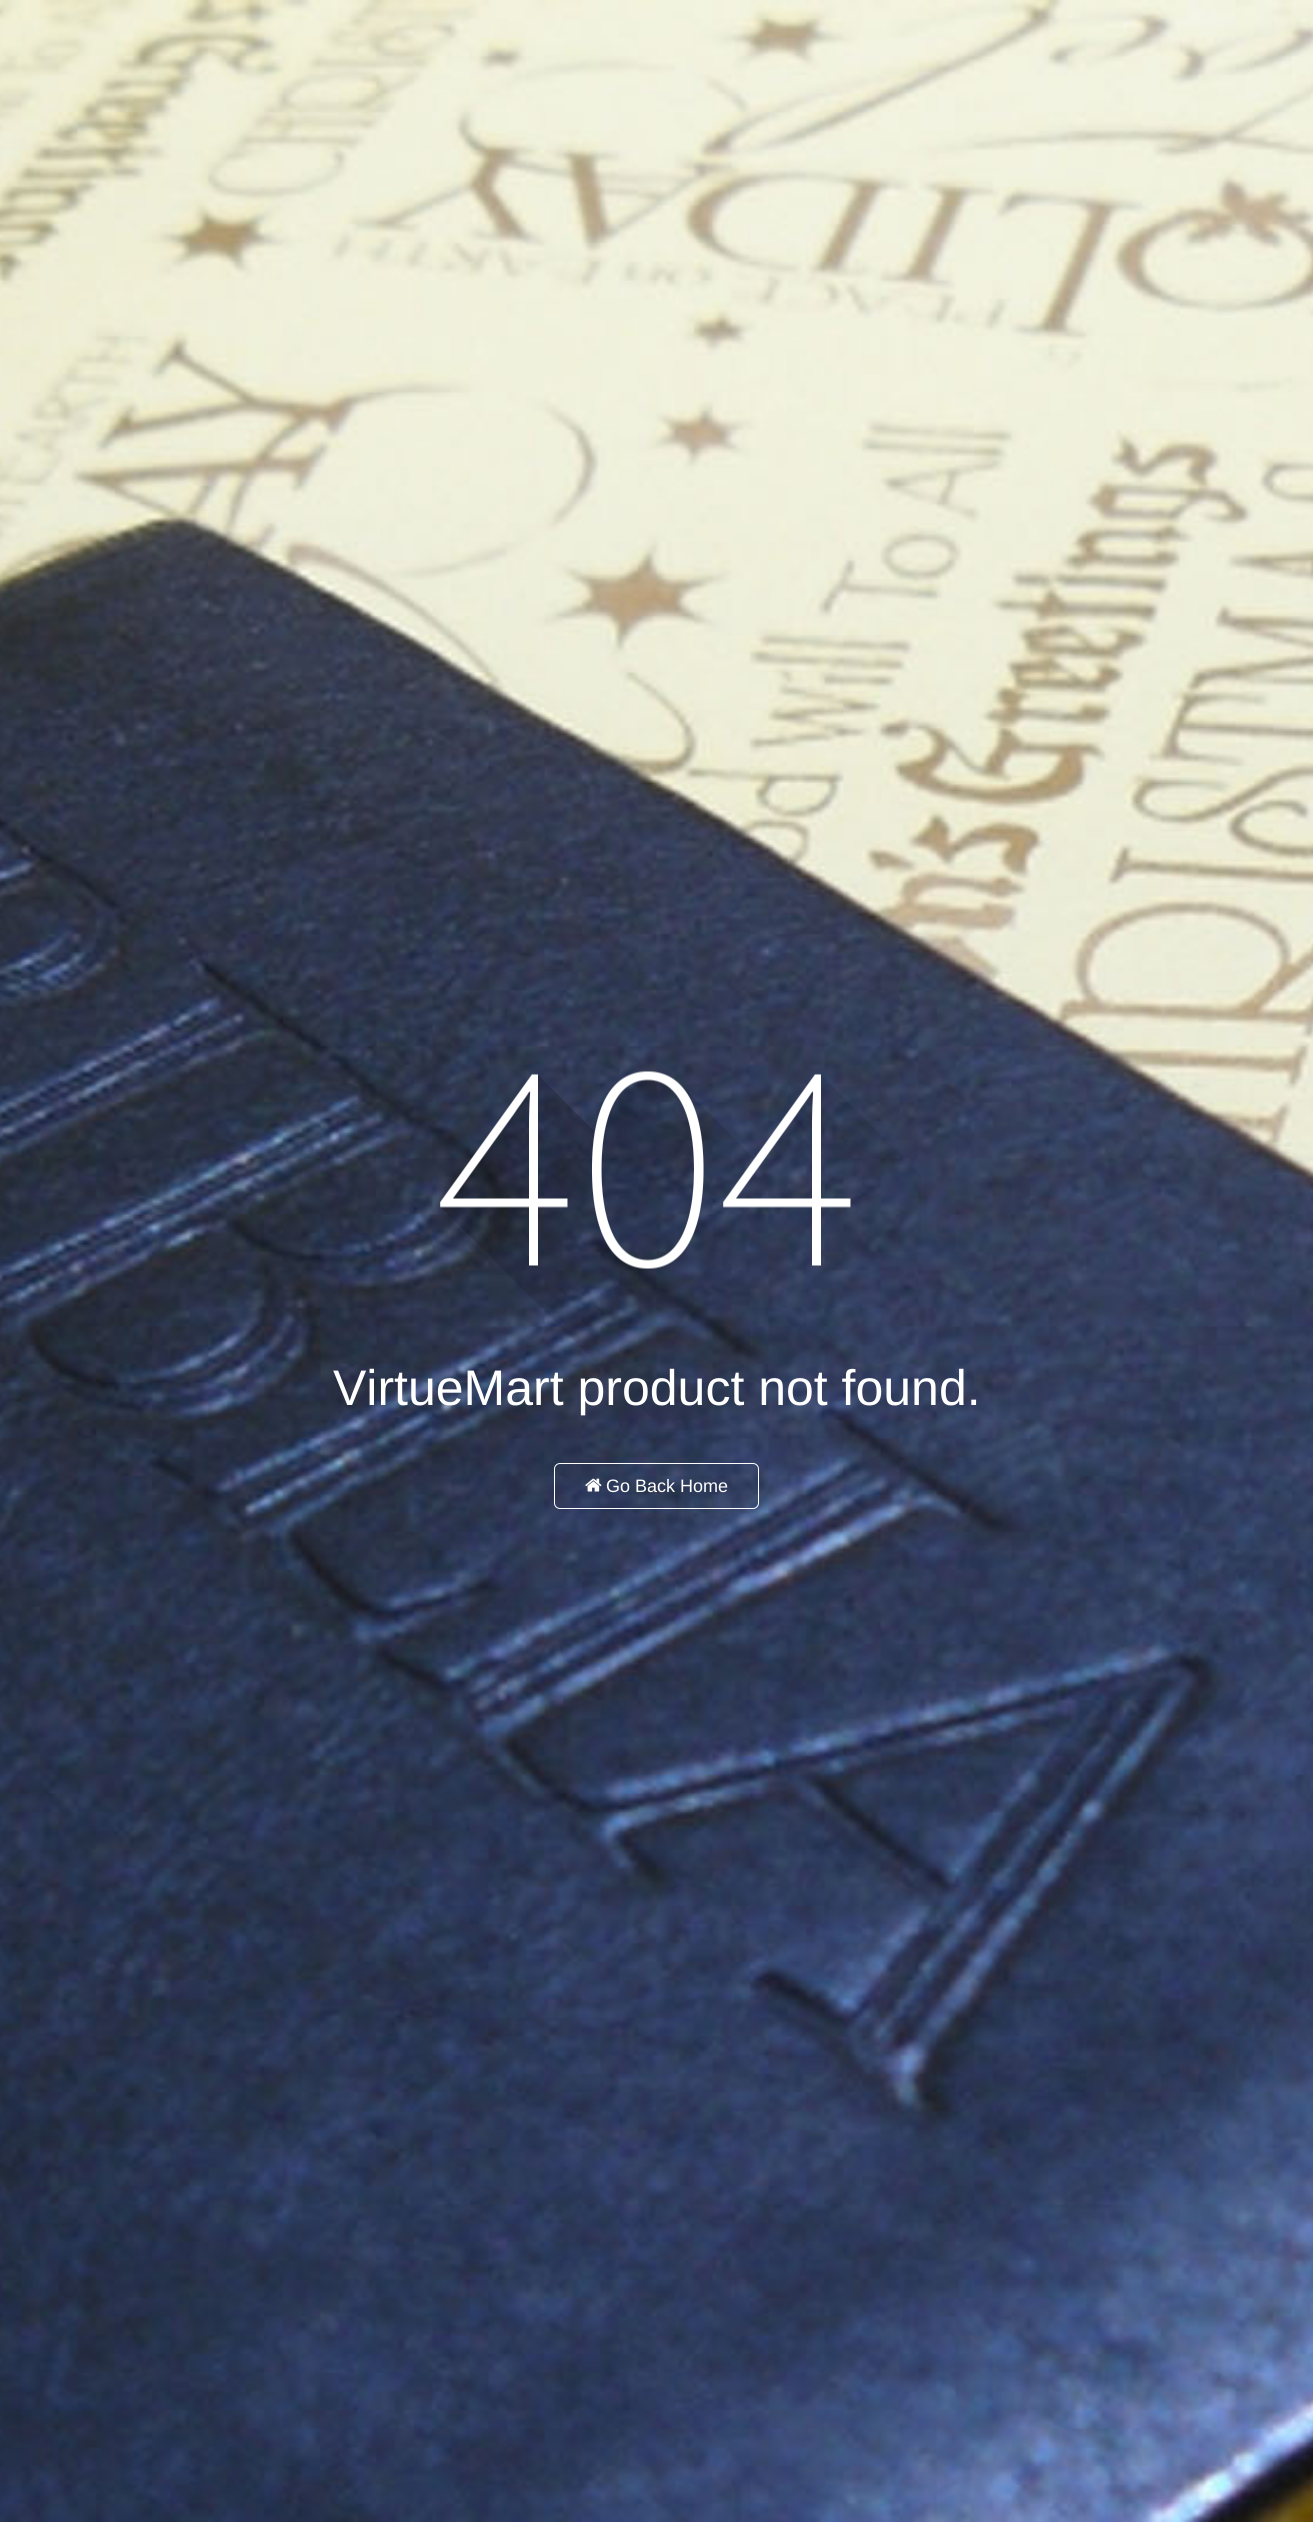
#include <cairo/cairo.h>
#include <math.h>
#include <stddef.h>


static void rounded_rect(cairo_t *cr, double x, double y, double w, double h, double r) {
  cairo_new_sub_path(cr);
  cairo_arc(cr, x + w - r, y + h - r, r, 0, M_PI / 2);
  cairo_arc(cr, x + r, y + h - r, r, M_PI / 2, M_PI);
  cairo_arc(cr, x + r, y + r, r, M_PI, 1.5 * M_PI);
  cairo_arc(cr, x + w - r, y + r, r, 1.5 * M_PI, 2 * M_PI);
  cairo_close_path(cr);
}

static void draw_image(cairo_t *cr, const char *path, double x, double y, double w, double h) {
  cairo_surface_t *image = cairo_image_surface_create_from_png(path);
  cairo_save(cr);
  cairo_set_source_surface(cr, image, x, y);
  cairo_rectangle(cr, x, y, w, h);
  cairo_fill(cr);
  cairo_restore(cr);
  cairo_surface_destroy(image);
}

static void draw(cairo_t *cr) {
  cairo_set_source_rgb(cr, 1, 1, 1);
  cairo_paint(cr);
  draw_image(cr, "images/1.png", 0, 0, 1313, 2522);
  draw_image(cr, "images/2.png", 440, 1071, 481, 359);
  rounded_rect(cr, 554.5, 1463.5, 204, 45, 5.5);
  cairo_set_source_rgb(cr, 1, 1, 1);
  cairo_set_line_width(cr, 1);
  cairo_stroke(cr);
  draw_image(cr, "images/3.png", 585, 1478, 17, 14);
  cairo_select_font_face(cr, "Liberation Sans", CAIRO_FONT_SLANT_NORMAL, CAIRO_FONT_WEIGHT_NORMAL);
  cairo_set_font_size(cr, 50);
  cairo_move_to(cr, 333, 1405);
  cairo_show_text(cr, "VirtueMart product not found.");
  cairo_set_font_size(cr, 18);
  cairo_move_to(cr, 606, 1492);
  cairo_show_text(cr, "Go Back Home");
}

int main(void) {
  cairo_surface_t *surface = cairo_image_surface_create(CAIRO_FORMAT_RGB24, 1313, 2522);
  cairo_t *cr = cairo_create(surface);
  cairo_font_options_t *options = cairo_font_options_create();
  cairo_font_options_set_hint_metrics(options, CAIRO_HINT_METRICS_OFF);
  cairo_font_options_set_hint_style(options, CAIRO_HINT_STYLE_NONE);
  cairo_set_font_options(cr, options);
  cairo_set_miter_limit(cr, 4);
  draw(cr);
  cairo_surface_write_to_png(surface, "out.png");
  cairo_font_options_destroy(options);
  cairo_destroy(cr);
  cairo_surface_destroy(surface);
  return 0;
}
